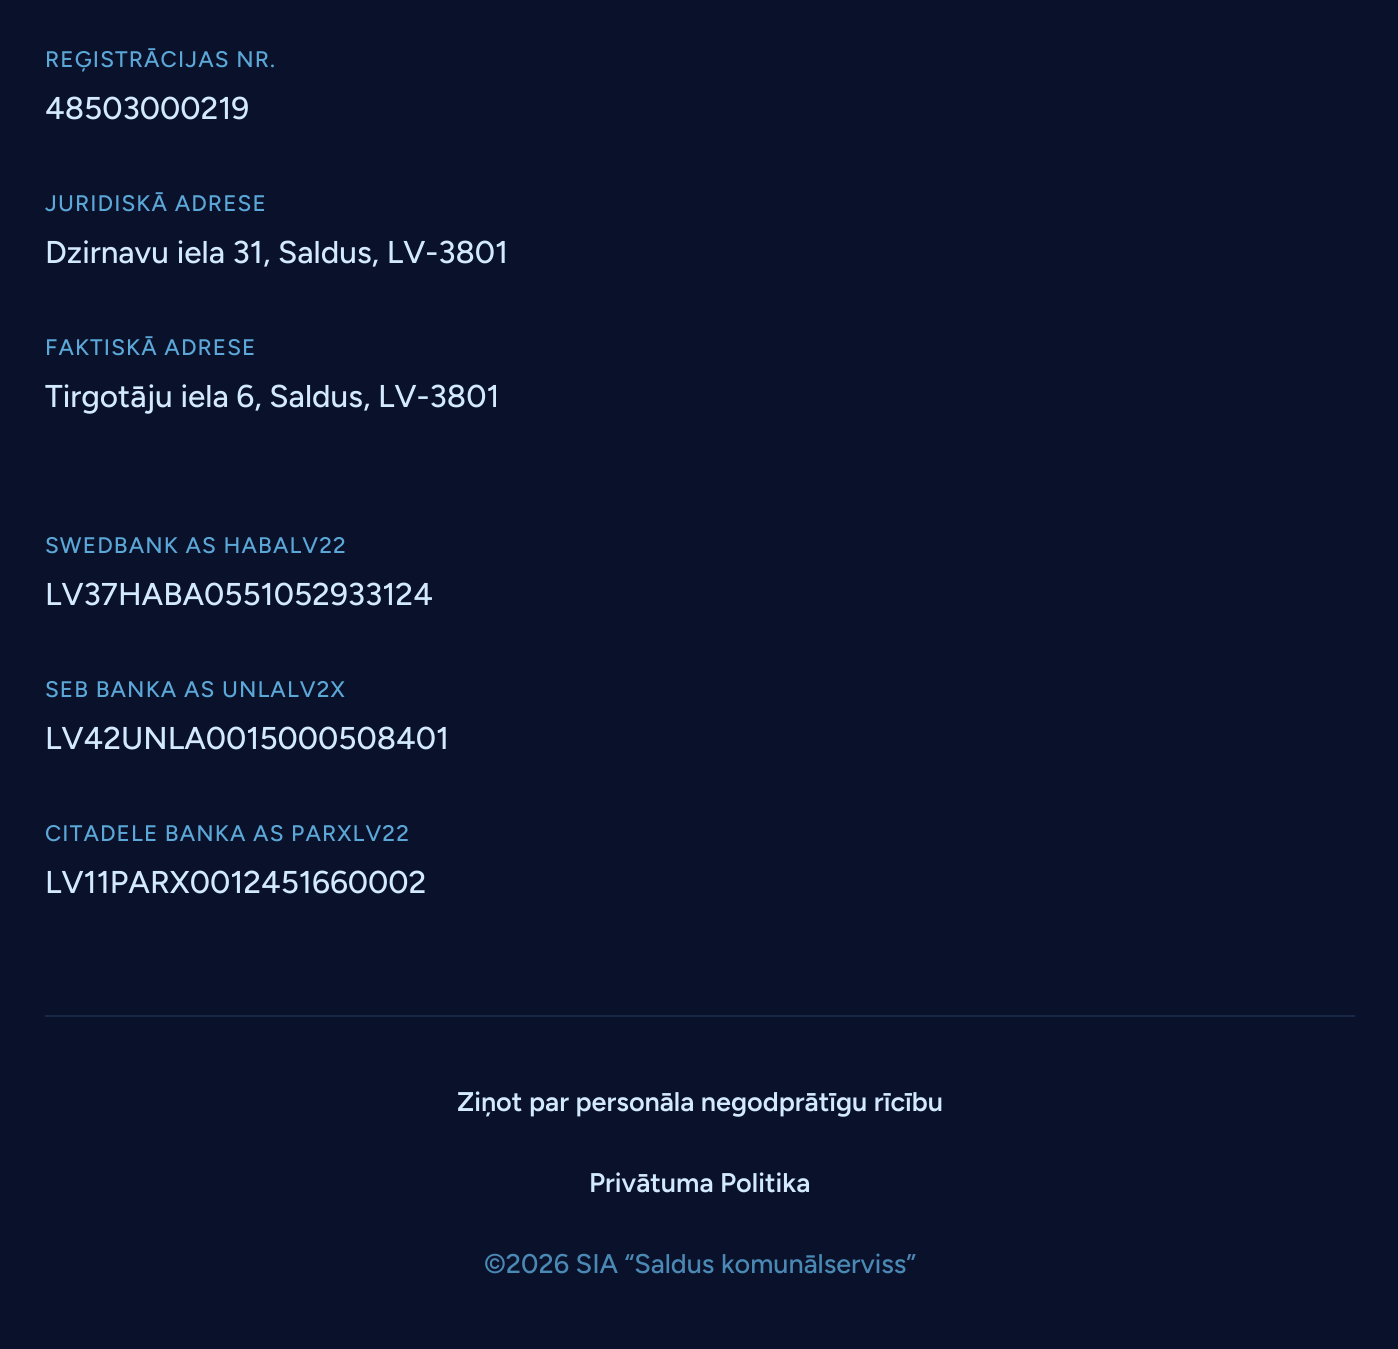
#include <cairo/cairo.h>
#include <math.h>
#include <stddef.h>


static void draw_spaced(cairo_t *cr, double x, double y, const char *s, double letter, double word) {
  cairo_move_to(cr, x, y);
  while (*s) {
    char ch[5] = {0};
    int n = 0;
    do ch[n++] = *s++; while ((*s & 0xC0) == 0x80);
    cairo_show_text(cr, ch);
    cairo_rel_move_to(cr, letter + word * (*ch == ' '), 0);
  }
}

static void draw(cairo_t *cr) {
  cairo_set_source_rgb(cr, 10 / 255.0, 17 / 255.0, 43 / 255.0);
  cairo_paint(cr);
  cairo_set_source_rgb(cr, 23 / 255.0, 41 / 255.0, 71 / 255.0);
  cairo_rectangle(cr, 45, 1015, 1310, 2);
  cairo_fill(cr);
  cairo_select_font_face(cr, "Figtree Medium", CAIRO_FONT_SLANT_NORMAL, CAIRO_FONT_WEIGHT_NORMAL);
  cairo_set_font_size(cr, 22.5);
  cairo_set_source_rgb(cr, 91 / 255.0, 167 / 255.0, 215 / 255.0);
  draw_spaced(cr, 45, 67, "REĢISTRĀCIJAS NR.", 1.1, 0);
  cairo_set_font_size(cr, 31.5);
  cairo_set_source_rgb(cr, 210 / 255.0, 233 / 255.0, 1);
  cairo_move_to(cr, 45, 119);
  cairo_show_text(cr, "48503000219");
  cairo_set_font_size(cr, 22.5);
  cairo_set_source_rgb(cr, 91 / 255.0, 167 / 255.0, 215 / 255.0);
  draw_spaced(cr, 45, 211, "JURIDISKĀ ADRESE", 1.1, 0);
  cairo_set_font_size(cr, 31.5);
  cairo_set_source_rgb(cr, 210 / 255.0, 233 / 255.0, 1);
  cairo_move_to(cr, 45, 263);
  cairo_show_text(cr, "Dzirnavu iela 31, Saldus, LV-3801");
  cairo_set_font_size(cr, 22.5);
  cairo_set_source_rgb(cr, 91 / 255.0, 167 / 255.0, 215 / 255.0);
  draw_spaced(cr, 45, 355, "FAKTISKĀ ADRESE", 1.1, 0);
  cairo_set_font_size(cr, 31.5);
  cairo_set_source_rgb(cr, 210 / 255.0, 233 / 255.0, 1);
  cairo_move_to(cr, 45, 407);
  cairo_show_text(cr, "Tirgotāju iela 6, Saldus, LV-3801");
  cairo_set_font_size(cr, 22.5);
  cairo_set_source_rgb(cr, 91 / 255.0, 167 / 255.0, 215 / 255.0);
  draw_spaced(cr, 45, 553, "SWEDBANK AS HABALV22", 1.1, 0);
  cairo_set_font_size(cr, 31.5);
  cairo_set_source_rgb(cr, 210 / 255.0, 233 / 255.0, 1);
  cairo_move_to(cr, 45, 605);
  cairo_show_text(cr, "LV37HABA0551052933124");
  cairo_set_font_size(cr, 22.5);
  cairo_set_source_rgb(cr, 91 / 255.0, 167 / 255.0, 215 / 255.0);
  draw_spaced(cr, 45, 697, "SEB BANKA AS UNLALV2X", 1.1, 0);
  cairo_set_font_size(cr, 31.5);
  cairo_set_source_rgb(cr, 210 / 255.0, 233 / 255.0, 1);
  cairo_move_to(cr, 45, 749);
  cairo_show_text(cr, "LV42UNLA0015000508401");
  cairo_set_font_size(cr, 22.5);
  cairo_set_source_rgb(cr, 91 / 255.0, 167 / 255.0, 215 / 255.0);
  draw_spaced(cr, 45, 841, "CITADELE BANKA AS PARXLV22", 1.1, 0);
  cairo_set_font_size(cr, 31.5);
  cairo_set_source_rgb(cr, 210 / 255.0, 233 / 255.0, 1);
  cairo_move_to(cr, 45, 893);
  cairo_show_text(cr, "LV11PARX0012451660002");
  cairo_select_font_face(cr, "Figtree SemiBold", CAIRO_FONT_SLANT_NORMAL, CAIRO_FONT_WEIGHT_NORMAL);
  cairo_set_font_size(cr, 27);
  cairo_move_to(cr, 457, 1111);
  cairo_show_text(cr, "Ziņot par personāla negodprātīgu rīcību");
  cairo_move_to(cr, 589, 1192);
  cairo_show_text(cr, "Privātuma Politika");
  cairo_select_font_face(cr, "Figtree Medium", CAIRO_FONT_SLANT_NORMAL, CAIRO_FONT_WEIGHT_NORMAL);
  cairo_set_source_rgb(cr, 75 / 255.0, 137 / 255.0, 181 / 255.0);
  cairo_move_to(cr, 484, 1273);
  cairo_show_text(cr, "©2026 SIA “Saldus komunālserviss”");
}

int main(void) {
  cairo_surface_t *surface = cairo_image_surface_create(CAIRO_FORMAT_RGB24, 1398, 1349);
  cairo_t *cr = cairo_create(surface);
  cairo_font_options_t *options = cairo_font_options_create();
  cairo_font_options_set_hint_metrics(options, CAIRO_HINT_METRICS_OFF);
  cairo_font_options_set_hint_style(options, CAIRO_HINT_STYLE_NONE);
  cairo_set_font_options(cr, options);
  cairo_set_miter_limit(cr, 4);
  draw(cr);
  cairo_surface_write_to_png(surface, "out.png");
  cairo_font_options_destroy(options);
  cairo_destroy(cr);
  cairo_surface_destroy(surface);
  return 0;
}
